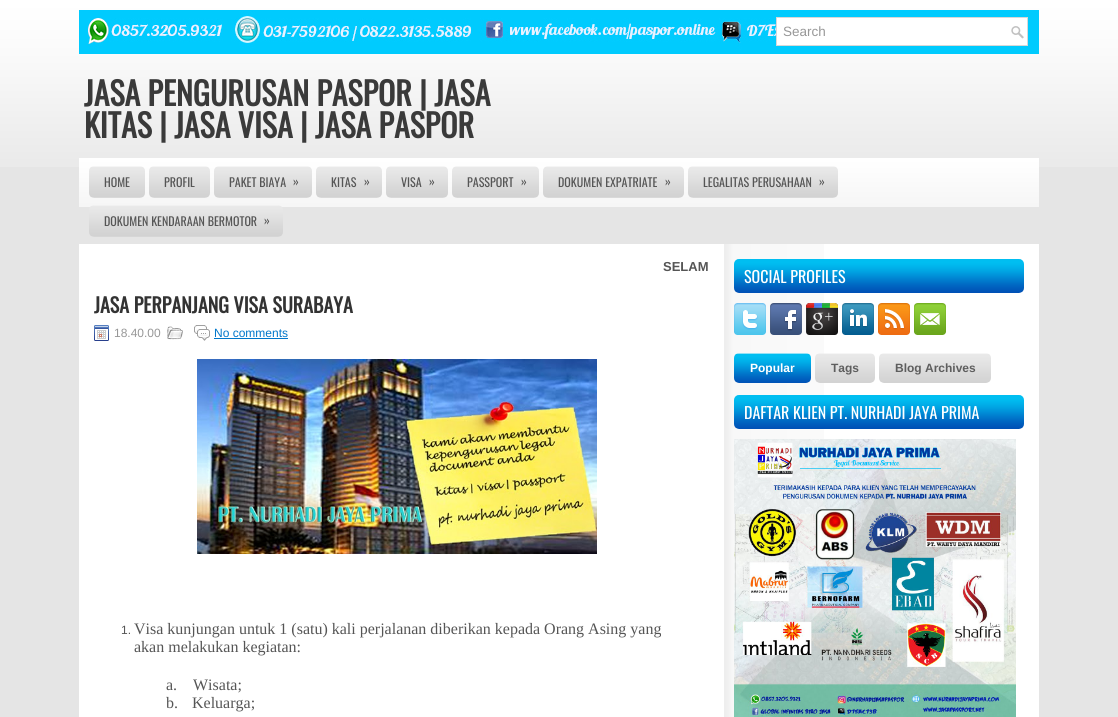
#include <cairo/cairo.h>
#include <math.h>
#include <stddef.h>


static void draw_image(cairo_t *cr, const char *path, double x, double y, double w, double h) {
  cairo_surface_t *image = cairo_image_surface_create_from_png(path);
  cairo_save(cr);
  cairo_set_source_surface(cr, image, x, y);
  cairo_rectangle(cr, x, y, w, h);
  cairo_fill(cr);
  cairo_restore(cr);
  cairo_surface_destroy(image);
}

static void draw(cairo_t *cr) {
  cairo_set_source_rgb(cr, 229 / 255.0, 229 / 255.0, 229 / 255.0);
  cairo_paint(cr);
  draw_image(cr, "images/1.png", 0, 0, 1118, 167);
  draw_image(cr, "images/2.png", 79, 10, 960, 44);
  cairo_set_source_rgb(cr, 1, 1, 1);
  cairo_rectangle(cr, 777, 18, 250, 27);
  cairo_fill(cr);
  draw_image(cr, "images/3.png", 1011, 26, 13, 13);
  cairo_rectangle(cr, 776.5, 17.5, 251, 28);
  cairo_set_source_rgb(cr, 216 / 255.0, 216 / 255.0, 216 / 255.0);
  cairo_set_line_width(cr, 1);
  cairo_stroke(cr);
  draw_image(cr, "images/4.png", 79, 158, 960, 49);
  draw_image(cr, "images/5.png", 89, 166, 56, 32);
  draw_image(cr, "images/6.png", 149, 166, 61, 32);
  draw_image(cr, "images/7.png", 214, 166, 98, 32);
  draw_image(cr, "images/8.png", 316, 166, 66, 32);
  draw_image(cr, "images/9.png", 386, 166, 62, 32);
  draw_image(cr, "images/10.png", 452, 166, 87, 32);
  draw_image(cr, "images/11.png", 543, 166, 141, 32);
  draw_image(cr, "images/12.png", 688, 166, 150, 32);
  draw_image(cr, "images/13.png", 89, 205, 194, 32);
  cairo_set_source_rgb(cr, 1, 1, 1);
  cairo_rectangle(cr, 79, 244, 960, 473);
  cairo_fill(cr);
  draw_image(cr, "images/14.png", 724, 244, 100, 473);
  draw_image(cr, "images/15.png", 94, 325, 15, 16);
  draw_image(cr, "images/16.png", 167, 326, 16, 14);
  draw_image(cr, "images/17.png", 194, 325, 16, 16);
  cairo_set_source_rgb(cr, 0, 119 / 255.0, 203 / 255.0);
  cairo_rectangle(cr, 214, 338, 74, 1);
  cairo_fill(cr);
  draw_image(cr, "images/18.png", 197, 359, 400, 195);
  draw_image(cr, "images/19.png", 734, 259, 290, 34);
  draw_image(cr, "images/20.png", 734, 303, 32, 32);
  draw_image(cr, "images/21.png", 770, 303, 32, 32);
  draw_image(cr, "images/22.png", 806, 303, 32, 32);
  draw_image(cr, "images/23.png", 842, 303, 32, 32);
  draw_image(cr, "images/24.png", 878, 303, 32, 32);
  draw_image(cr, "images/25.png", 914, 303, 32, 32);
  draw_image(cr, "images/26.png", 734, 353, 77, 30);
  draw_image(cr, "images/27.png", 815, 353, 60, 30);
  draw_image(cr, "images/28.png", 879, 353, 112, 30);
  draw_image(cr, "images/19.png", 734, 395, 290, 34);
  draw_image(cr, "images/29.png", 734, 439, 282, 278);
  cairo_select_font_face(cr, "Liberation Sans", CAIRO_FONT_SLANT_NORMAL, CAIRO_FONT_WEIGHT_NORMAL);
  cairo_set_font_size(cr, 13.5);
  cairo_set_source_rgb(cr, 151 / 255.0, 151 / 255.0, 151 / 255.0);
  cairo_move_to(cr, 783, 36);
  cairo_show_text(cr, "Search");
  cairo_select_font_face(cr, "Oswald", CAIRO_FONT_SLANT_NORMAL, CAIRO_FONT_WEIGHT_BOLD);
  cairo_set_font_size(cr, 32);
  cairo_set_source_rgb(cr, 58 / 255.0, 58 / 255.0, 58 / 255.0);
  cairo_move_to(cr, 84, 106);
  cairo_show_text(cr, "JASA PENGURUSAN PASPOR | JASA");
  cairo_move_to(cr, 84, 138);
  cairo_show_text(cr, "KITAS | JASA VISA | JASA PASPOR");
  cairo_select_font_face(cr, "Oswald", CAIRO_FONT_SLANT_NORMAL, CAIRO_FONT_WEIGHT_NORMAL);
  cairo_set_font_size(cr, 12);
  cairo_set_source_rgb(cr, 85 / 255.0, 85 / 255.0, 85 / 255.0);
  cairo_move_to(cr, 104, 187);
  cairo_show_text(cr, "HOME");
  cairo_move_to(cr, 164, 187);
  cairo_show_text(cr, "PROFIL");
  cairo_move_to(cr, 229, 187);
  cairo_show_text(cr, "PAKET BIAYA");
  cairo_move_to(cr, 293, 186);
  cairo_show_text(cr, "»");
  cairo_move_to(cr, 331, 187);
  cairo_show_text(cr, "KITAS");
  cairo_move_to(cr, 364, 186);
  cairo_show_text(cr, "»");
  cairo_move_to(cr, 401, 187);
  cairo_show_text(cr, "VISA");
  cairo_move_to(cr, 429, 186);
  cairo_show_text(cr, "»");
  cairo_move_to(cr, 467, 187);
  cairo_show_text(cr, "PASSPORT");
  cairo_move_to(cr, 521, 186);
  cairo_show_text(cr, "»");
  cairo_move_to(cr, 558, 187);
  cairo_show_text(cr, "DOKUMEN EXPATRIATE");
  cairo_move_to(cr, 665, 186);
  cairo_show_text(cr, "»");
  cairo_move_to(cr, 703, 187);
  cairo_show_text(cr, "LEGALITAS PERUSAHAAN");
  cairo_move_to(cr, 819, 186);
  cairo_show_text(cr, "»");
  cairo_move_to(cr, 104, 226);
  cairo_show_text(cr, "DOKUMEN KENDARAAN BERMOTOR");
  cairo_move_to(cr, 264, 225);
  cairo_show_text(cr, "»");
  cairo_select_font_face(cr, "Liberation Sans", CAIRO_FONT_SLANT_NORMAL, CAIRO_FONT_WEIGHT_BOLD);
  cairo_set_font_size(cr, 13);
  cairo_move_to(cr, 663, 271);
  cairo_show_text(cr, "SELAM");
  cairo_select_font_face(cr, "Oswald", CAIRO_FONT_SLANT_NORMAL, CAIRO_FONT_WEIGHT_BOLD);
  cairo_set_font_size(cr, 20);
  cairo_set_source_rgb(cr, 51 / 255.0, 51 / 255.0, 51 / 255.0);
  cairo_move_to(cr, 94, 313);
  cairo_show_text(cr, "JASA PERPANJANG VISA SURABAYA");
  cairo_select_font_face(cr, "Liberation Sans", CAIRO_FONT_SLANT_NORMAL, CAIRO_FONT_WEIGHT_NORMAL);
  cairo_set_font_size(cr, 12);
  cairo_set_source_rgb(cr, 151 / 255.0, 151 / 255.0, 151 / 255.0);
  cairo_move_to(cr, 114, 337);
  cairo_show_text(cr, "18.40.00");
  cairo_set_source_rgb(cr, 0, 119 / 255.0, 203 / 255.0);
  cairo_move_to(cr, 214, 337);
  cairo_show_text(cr, "No comments");
  cairo_set_source_rgb(cr, 85 / 255.0, 85 / 255.0, 85 / 255.0);
  cairo_move_to(cr, 121, 634);
  cairo_show_text(cr, "1.");
  cairo_select_font_face(cr, "Liberation Serif", CAIRO_FONT_SLANT_NORMAL, CAIRO_FONT_WEIGHT_NORMAL);
  cairo_set_font_size(cr, 16);
  cairo_move_to(cr, 134, 634);
  cairo_show_text(cr, "Visa kunjungan untuk 1 (satu) kali perjalanan diberikan kepada Orang Asing yang");
  cairo_move_to(cr, 134, 652);
  cairo_show_text(cr, "akan melakukan kegiatan:");
  cairo_move_to(cr, 166, 690);
  cairo_show_text(cr, "a.");
  cairo_move_to(cr, 193, 690);
  cairo_show_text(cr, "Wisata;");
  cairo_move_to(cr, 166, 708);
  cairo_show_text(cr, "b.");
  cairo_move_to(cr, 192, 708);
  cairo_show_text(cr, "Keluarga;");
  cairo_select_font_face(cr, "Oswald", CAIRO_FONT_SLANT_NORMAL, CAIRO_FONT_WEIGHT_NORMAL);
  cairo_set_source_rgb(cr, 1, 1, 1);
  cairo_move_to(cr, 744, 283);
  cairo_show_text(cr, "SOCIAL PROFILES");
  cairo_select_font_face(cr, "Liberation Sans", CAIRO_FONT_SLANT_NORMAL, CAIRO_FONT_WEIGHT_BOLD);
  cairo_set_font_size(cr, 12);
  cairo_move_to(cr, 750, 372);
  cairo_show_text(cr, "Popular");
  cairo_set_source_rgb(cr, 94 / 255.0, 94 / 255.0, 94 / 255.0);
  cairo_move_to(cr, 831, 372);
  cairo_show_text(cr, "Tags");
  cairo_move_to(cr, 895, 372);
  cairo_show_text(cr, "Blog Archives");
  cairo_select_font_face(cr, "Oswald", CAIRO_FONT_SLANT_NORMAL, CAIRO_FONT_WEIGHT_NORMAL);
  cairo_set_font_size(cr, 16);
  cairo_set_source_rgb(cr, 1, 1, 1);
  cairo_move_to(cr, 744, 419);
  cairo_show_text(cr, "DAFTAR KLIEN PT. NURHADI JAYA PRIMA");
}

int main(void) {
  cairo_surface_t *surface = cairo_image_surface_create(CAIRO_FORMAT_RGB24, 1118, 717);
  cairo_t *cr = cairo_create(surface);
  cairo_font_options_t *options = cairo_font_options_create();
  cairo_font_options_set_hint_metrics(options, CAIRO_HINT_METRICS_OFF);
  cairo_font_options_set_hint_style(options, CAIRO_HINT_STYLE_NONE);
  cairo_set_font_options(cr, options);
  cairo_set_miter_limit(cr, 4);
  draw(cr);
  cairo_surface_write_to_png(surface, "out.png");
  cairo_font_options_destroy(options);
  cairo_destroy(cr);
  cairo_surface_destroy(surface);
  return 0;
}
